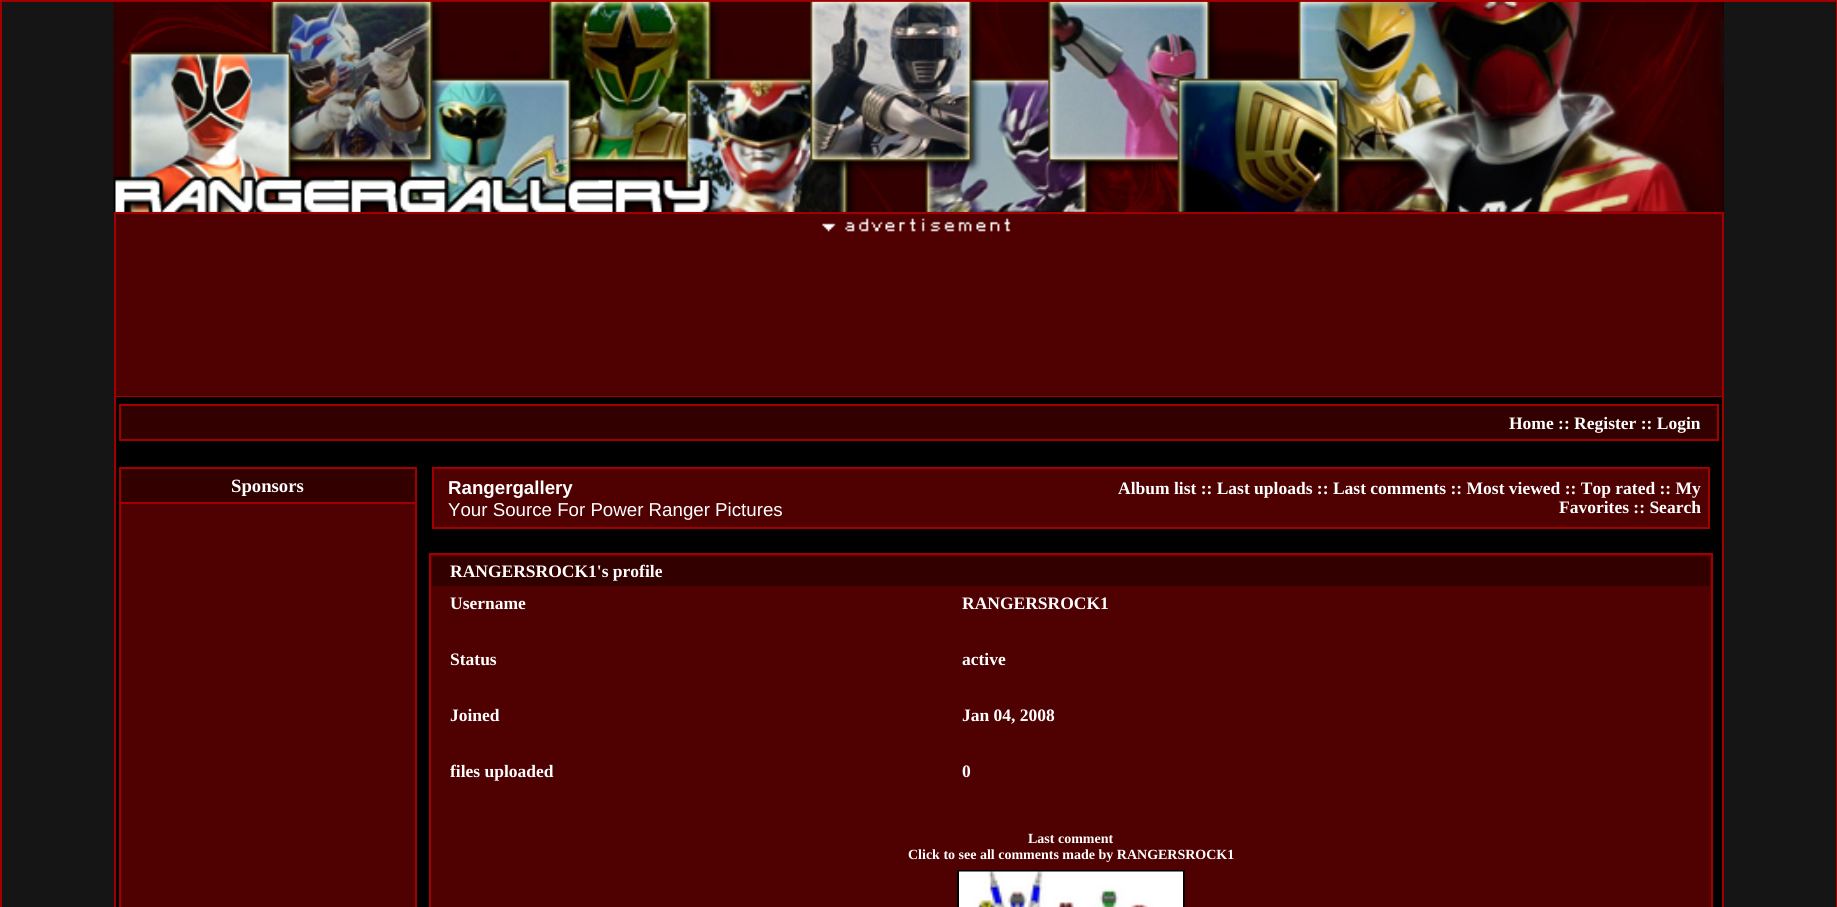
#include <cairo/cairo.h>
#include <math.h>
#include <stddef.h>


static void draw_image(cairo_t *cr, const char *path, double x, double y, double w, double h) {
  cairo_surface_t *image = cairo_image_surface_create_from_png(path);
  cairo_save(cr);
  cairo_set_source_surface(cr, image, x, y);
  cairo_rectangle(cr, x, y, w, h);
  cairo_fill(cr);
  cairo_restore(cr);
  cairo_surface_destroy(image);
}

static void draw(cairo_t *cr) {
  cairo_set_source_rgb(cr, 21 / 255.0, 21 / 255.0, 21 / 255.0);
  cairo_paint(cr);
  cairo_set_source_rgb(cr, 162 / 255.0, 0, 0);
  cairo_rectangle(cr, 0, 0, 1837, 2);
  cairo_fill(cr);
  cairo_rectangle(cr, 1836, 0, 1, 907);
  cairo_fill(cr);
  cairo_rectangle(cr, 0, 0, 2, 907);
  cairo_fill(cr);
  cairo_set_source_rgb(cr, 0, 0, 0);
  cairo_rectangle(cr, 114, 2, 1610, 210);
  cairo_fill(cr);
  draw_image(cr, "images/1.png", 113, 1, 1611, 211);
  draw_image(cr, "images/2.png", 113, 1, 876, 211);
  cairo_set_source_rgb(cr, 162 / 255.0, 0, 0);
  cairo_rectangle(cr, 114, 212, 1610, 695);
  cairo_fill(cr);
  cairo_set_source_rgb(cr, 0, 0, 0);
  cairo_rectangle(cr, 116, 397, 1606, 510);
  cairo_fill(cr);
  cairo_set_source_rgb(cr, 79 / 255.0, 1 / 255.0, 1 / 255.0);
  cairo_rectangle(cr, 116, 214, 1606, 182);
  cairo_fill(cr);
  draw_image(cr, "images/3.png", 822, 218, 189, 14);
  cairo_set_source_rgb(cr, 162 / 255.0, 0, 0);
  cairo_rectangle(cr, 119, 404, 1600, 37);
  cairo_fill(cr);
  cairo_set_source_rgb(cr, 51 / 255.0, 0, 0);
  cairo_rectangle(cr, 121, 406, 1596, 33);
  cairo_fill(cr);
  cairo_set_source_rgb(cr, 162 / 255.0, 0, 0);
  cairo_rectangle(cr, 119, 467, 298, 440);
  cairo_fill(cr);
  cairo_set_source_rgb(cr, 51 / 255.0, 0, 0);
  cairo_rectangle(cr, 121, 469, 294, 33);
  cairo_fill(cr);
  cairo_set_source_rgb(cr, 79 / 255.0, 1 / 255.0, 1 / 255.0);
  cairo_rectangle(cr, 121, 504, 294, 403);
  cairo_fill(cr);
  cairo_set_source_rgb(cr, 162 / 255.0, 0, 0);
  cairo_rectangle(cr, 432, 467, 1278, 62);
  cairo_fill(cr);
  cairo_set_source_rgb(cr, 79 / 255.0, 1 / 255.0, 1 / 255.0);
  cairo_rectangle(cr, 434, 469, 1274, 58);
  cairo_fill(cr);
  cairo_rectangle(cr, 430, 554, 1282, 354);
  cairo_fill_preserve(cr);
  cairo_set_source_rgb(cr, 162 / 255.0, 0, 0);
  cairo_stroke(cr);
  cairo_set_source_rgb(cr, 51 / 255.0, 0, 0);
  cairo_rectangle(cr, 432, 557, 1278, 29);
  cairo_fill(cr);
  cairo_rectangle(cr, 958, 871, 226, 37);
  cairo_set_source_rgb(cr, 0, 0, 0);
  cairo_stroke(cr);
  draw_image(cr, "images/4.png", 959, 871, 224, 36);
  cairo_select_font_face(cr, "Liberation Serif", CAIRO_FONT_SLANT_NORMAL, CAIRO_FONT_WEIGHT_BOLD);
  cairo_set_font_size(cr, 17.5);
  cairo_set_source_rgb(cr, 1, 1, 1);
  cairo_move_to(cr, 1509, 429);
  cairo_show_text(cr, "Home :: Register :: Login");
  cairo_set_font_size(cr, 18.7);
  cairo_move_to(cr, 231, 492);
  cairo_show_text(cr, "Sponsors");
  cairo_select_font_face(cr, "Liberation Sans", CAIRO_FONT_SLANT_NORMAL, CAIRO_FONT_WEIGHT_BOLD);
  cairo_move_to(cr, 448, 494);
  cairo_show_text(cr, "Rangergallery");
  cairo_select_font_face(cr, "Liberation Sans", CAIRO_FONT_SLANT_NORMAL, CAIRO_FONT_WEIGHT_NORMAL);
  cairo_move_to(cr, 448, 516);
  cairo_show_text(cr, "Your Source For Power Ranger Pictures");
  cairo_select_font_face(cr, "Liberation Serif", CAIRO_FONT_SLANT_NORMAL, CAIRO_FONT_WEIGHT_BOLD);
  cairo_set_font_size(cr, 17.5);
  cairo_move_to(cr, 1118, 494);
  cairo_show_text(cr, "Album list :: Last uploads :: Last comments :: Most viewed :: Top rated :: My");
  cairo_move_to(cr, 1559, 513);
  cairo_show_text(cr, "Favorites :: Search");
  cairo_move_to(cr, 450, 577);
  cairo_show_text(cr, "RANGERSROCK1's profile");
  cairo_move_to(cr, 450, 609);
  cairo_show_text(cr, "Username");
  cairo_move_to(cr, 962, 609);
  cairo_show_text(cr, "RANGERSROCK1");
  cairo_move_to(cr, 450, 665);
  cairo_show_text(cr, "Status");
  cairo_move_to(cr, 962, 665);
  cairo_show_text(cr, "active");
  cairo_move_to(cr, 450, 721);
  cairo_show_text(cr, "Joined");
  cairo_move_to(cr, 962, 721);
  cairo_show_text(cr, "Jan 04, 2008");
  cairo_move_to(cr, 450, 777);
  cairo_show_text(cr, "files uploaded");
  cairo_move_to(cr, 962, 777);
  cairo_show_text(cr, "0");
  cairo_set_font_size(cr, 14);
  cairo_move_to(cr, 1028, 843);
  cairo_show_text(cr, "Last comment");
  cairo_move_to(cr, 908, 859);
  cairo_show_text(cr, "Click to see all comments made by RANGERSROCK1");
}

int main(void) {
  cairo_surface_t *surface = cairo_image_surface_create(CAIRO_FORMAT_RGB24, 1837, 907);
  cairo_t *cr = cairo_create(surface);
  cairo_font_options_t *options = cairo_font_options_create();
  cairo_font_options_set_hint_metrics(options, CAIRO_HINT_METRICS_OFF);
  cairo_font_options_set_hint_style(options, CAIRO_HINT_STYLE_NONE);
  cairo_set_font_options(cr, options);
  cairo_set_miter_limit(cr, 4);
  draw(cr);
  cairo_surface_write_to_png(surface, "out.png");
  cairo_font_options_destroy(options);
  cairo_destroy(cr);
  cairo_surface_destroy(surface);
  return 0;
}
